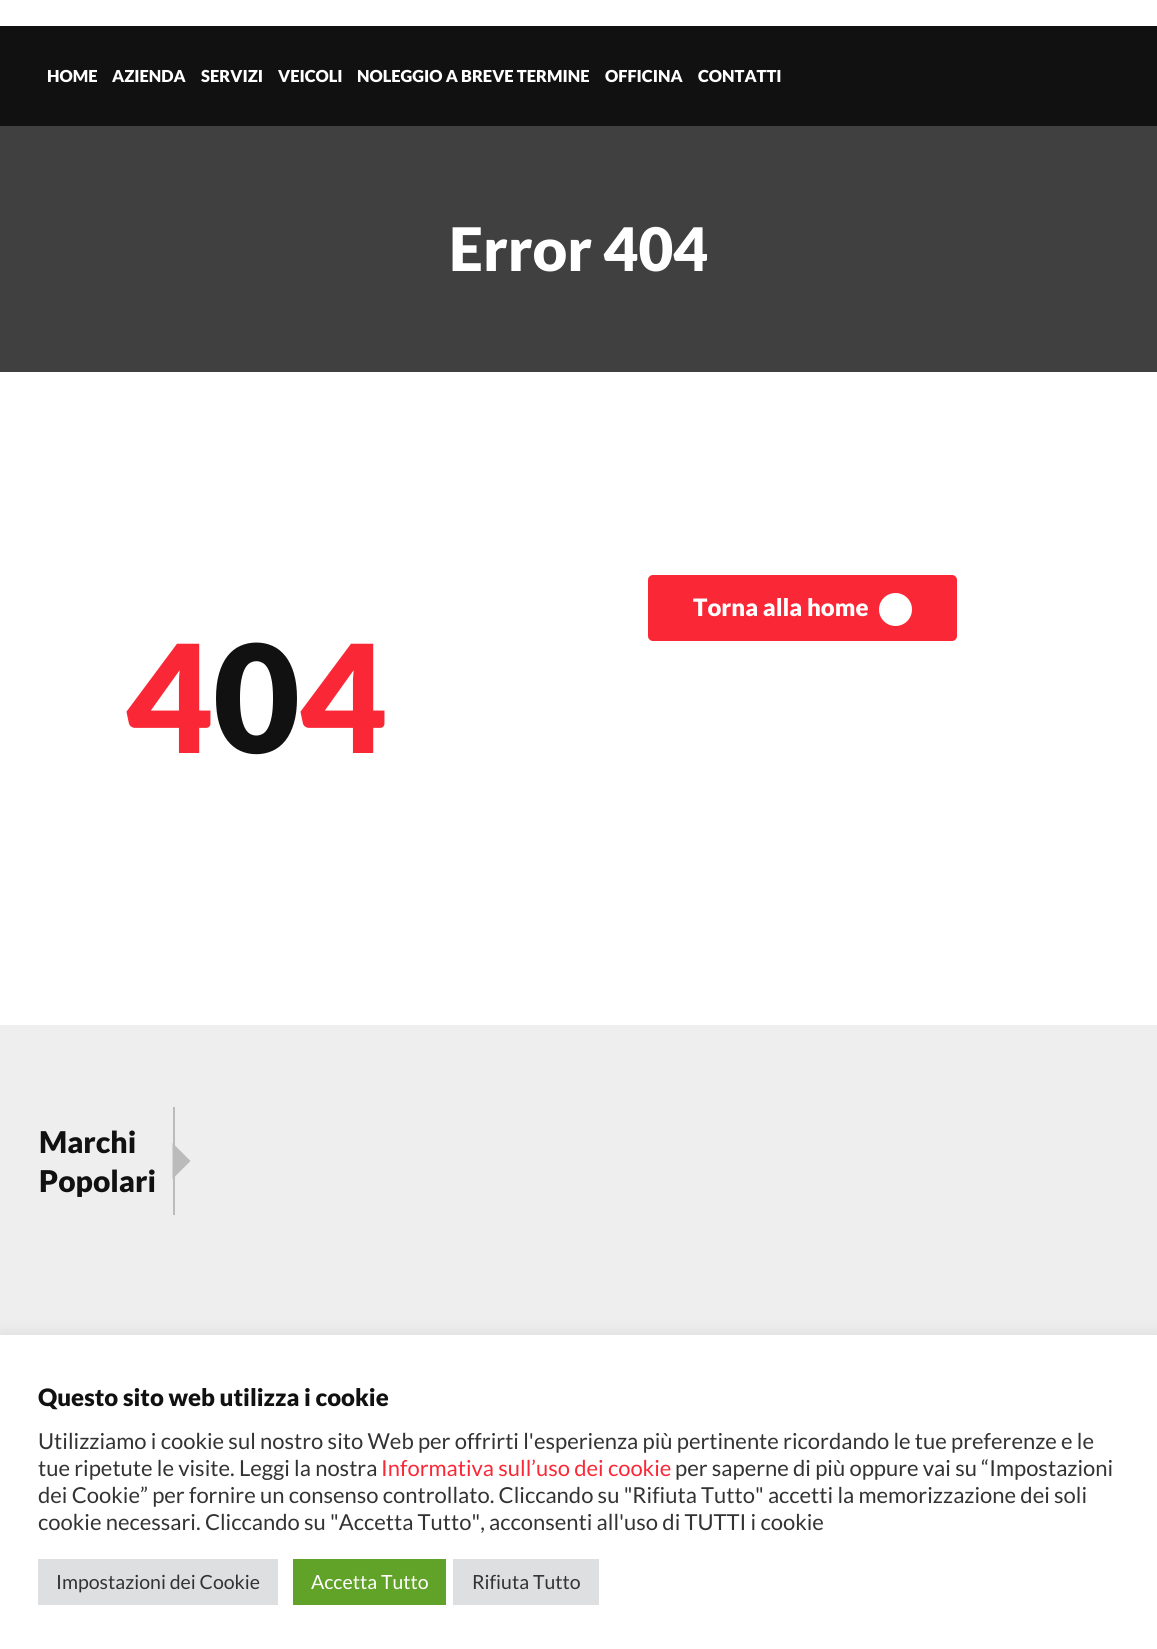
#include <cairo/cairo.h>
#include <math.h>
#include <stddef.h>


static void rounded_rect(cairo_t *cr, double x, double y, double w, double h, double r) {
  cairo_new_sub_path(cr);
  cairo_arc(cr, x + w - r, y + h - r, r, 0, M_PI / 2);
  cairo_arc(cr, x + r, y + h - r, r, M_PI / 2, M_PI);
  cairo_arc(cr, x + r, y + r, r, M_PI, 1.5 * M_PI);
  cairo_arc(cr, x + w - r, y + r, r, 1.5 * M_PI, 2 * M_PI);
  cairo_close_path(cr);
}

static void draw_shadow(cairo_t *cr, double x, double y, double w, double h, double r, double blur, double alpha) {
  cairo_push_group_with_content(cr, CAIRO_CONTENT_ALPHA);
  cairo_set_operator(cr, CAIRO_OPERATOR_SOURCE);
  for (int i = 15; i >= -15 && fmin(w, h) + blur * i / 3 > 0; i -= 2) {
    double e = blur * i / 6;
    cairo_set_source_rgba(cr, 0, 0, 0, alpha * erfc((i - 1) / 8.5) / 2);
    rounded_rect(cr, x - e, y - e, w + 2 * e, h + 2 * e, fmax(0, fmin(r + e + blur * .6, fmin(w, h) / 2 + e)));
    cairo_fill(cr);
  }
  cairo_pattern_t *soft = cairo_pop_group(cr);
  cairo_mask(cr, soft);
  cairo_pattern_destroy(soft);
}

static void draw(cairo_t *cr) {
  cairo_set_source_rgb(cr, 1, 1, 1);
  cairo_paint(cr);
  cairo_set_source_rgb(cr, 17 / 255.0, 17 / 255.0, 17 / 255.0);
  cairo_rectangle(cr, 0, 26, 1157, 100);
  cairo_fill(cr);
  cairo_set_source_rgb(cr, 64 / 255.0, 64 / 255.0, 64 / 255.0);
  cairo_rectangle(cr, 0, 126, 1157, 246);
  cairo_fill(cr);
  cairo_set_source_rgb(cr, 250 / 255.0, 40 / 255.0, 55 / 255.0);
  rounded_rect(cr, 648, 575, 309, 66, 5);
  cairo_fill(cr);
  cairo_set_source_rgb(cr, 1, 1, 1);
  cairo_arc(cr, 895.5, 609.5, 16.5, 0, 2 * M_PI);
  cairo_fill(cr);
  cairo_set_source_rgb(cr, 238 / 255.0, 238 / 255.0, 238 / 255.0);
  cairo_rectangle(cr, 0, 1025, 1157, 310);
  cairo_fill(cr);
  cairo_set_source_rgb(cr, 187 / 255.0, 187 / 255.0, 187 / 255.0);
  cairo_rectangle(cr, 173, 1107, 2, 108);
  cairo_fill(cr);
  cairo_new_path(cr);
  cairo_move_to(cr, 172.5, 1179);
  cairo_line_to(cr, 172.5, 1143);
  cairo_line_to(cr, 190.5, 1161);
  cairo_close_path(cr);
  cairo_fill(cr);
  cairo_set_source_rgb(cr, 172 / 255.0, 171 / 255.0, 171 / 255.0);
  draw_shadow(cr, 0, 1334, 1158, 315, 0, 7.5, 0.3);
  cairo_set_source_rgb(cr, 1, 1, 1);
  cairo_rectangle(cr, 0, 1335, 1157, 314);
  cairo_fill(cr);
  cairo_set_source_rgb(cr, 222 / 255.0, 223 / 255.0, 224 / 255.0);
  cairo_rectangle(cr, 38, 1559, 240, 46);
  cairo_fill(cr);
  cairo_set_source_rgb(cr, 97 / 255.0, 162 / 255.0, 41 / 255.0);
  cairo_rectangle(cr, 293, 1559, 153, 46);
  cairo_fill(cr);
  cairo_set_source_rgb(cr, 222 / 255.0, 223 / 255.0, 224 / 255.0);
  cairo_rectangle(cr, 453, 1559, 146, 46);
  cairo_fill(cr);
  cairo_select_font_face(cr, "Lato Black", CAIRO_FONT_SLANT_NORMAL, CAIRO_FONT_WEIGHT_NORMAL);
  cairo_set_font_size(cr, 16.5);
  cairo_set_source_rgb(cr, 1, 1, 1);
  cairo_move_to(cr, 47, 82);
  cairo_show_text(cr, "HOME");
  cairo_move_to(cr, 112, 82);
  cairo_show_text(cr, "AZIENDA");
  cairo_move_to(cr, 201, 82);
  cairo_show_text(cr, "SERVIZI");
  cairo_move_to(cr, 278, 82);
  cairo_show_text(cr, "VEICOLI");
  cairo_move_to(cr, 357, 82);
  cairo_show_text(cr, "NOLEGGIO A BREVE TERMINE");
  cairo_move_to(cr, 605, 82);
  cairo_show_text(cr, "OFFICINA");
  cairo_move_to(cr, 698, 82);
  cairo_show_text(cr, "CONTATTI");
  cairo_set_font_size(cr, 60);
  cairo_move_to(cr, 449, 271);
  cairo_show_text(cr, "Error 404");
  cairo_set_font_size(cr, 24);
  cairo_move_to(cr, 693, 616);
  cairo_show_text(cr, "Torna alla home");
  cairo_set_font_size(cr, 150);
  cairo_set_source_rgb(cr, 250 / 255.0, 40 / 255.0, 55 / 255.0);
  cairo_move_to(cr, 126, 753);
  cairo_show_text(cr, "4");
  cairo_set_source_rgb(cr, 17 / 255.0, 17 / 255.0, 17 / 255.0);
  cairo_move_to(cr, 213, 753);
  cairo_show_text(cr, "0");
  cairo_set_source_rgb(cr, 250 / 255.0, 40 / 255.0, 55 / 255.0);
  cairo_move_to(cr, 300, 753);
  cairo_show_text(cr, "4");
  cairo_set_font_size(cr, 30);
  cairo_set_source_rgb(cr, 17 / 255.0, 17 / 255.0, 17 / 255.0);
  cairo_move_to(cr, 39, 1153);
  cairo_show_text(cr, "Marchi");
  cairo_move_to(cr, 39, 1192);
  cairo_show_text(cr, "Popolari");
  cairo_set_font_size(cr, 24);
  cairo_move_to(cr, 38, 1406);
  cairo_show_text(cr, "Questo sito web utilizza i cookie");
  cairo_select_font_face(cr, "Lato", CAIRO_FONT_SLANT_NORMAL, CAIRO_FONT_WEIGHT_NORMAL);
  cairo_set_font_size(cr, 22);
  cairo_set_source_rgb(cr, 51 / 255.0, 51 / 255.0, 51 / 255.0);
  cairo_move_to(cr, 38, 1449);
  cairo_show_text(cr, "Utilizziamo i cookie sul nostro sito Web per offrirti l'esperienza più pertinente ricordando le tue preferenze e le");
  cairo_move_to(cr, 38, 1476);
  cairo_show_text(cr, "tue ripetute le visite. Leggi la nostra");
  cairo_set_source_rgb(cr, 250 / 255.0, 40 / 255.0, 55 / 255.0);
  cairo_move_to(cr, 381, 1476);
  cairo_show_text(cr, "Informativa sull’uso dei cookie");
  cairo_set_source_rgb(cr, 51 / 255.0, 51 / 255.0, 51 / 255.0);
  cairo_move_to(cr, 675, 1476);
  cairo_show_text(cr, "per saperne di più oppure vai su “Impostazioni");
  cairo_move_to(cr, 38, 1503);
  cairo_show_text(cr, "dei Cookie” per fornire un consenso controllato. Cliccando su \"Rifiuta Tutto\" accetti la memorizzazione dei soli");
  cairo_move_to(cr, 38, 1530);
  cairo_show_text(cr, "cookie necessari. Cliccando su \"Accetta Tutto\", acconsenti all'uso di TUTTI i cookie");
  cairo_set_font_size(cr, 19.5);
  cairo_move_to(cr, 56, 1589);
  cairo_show_text(cr, "Impostazioni dei Cookie");
  cairo_set_source_rgb(cr, 1, 1, 1);
  cairo_move_to(cr, 311, 1589);
  cairo_show_text(cr, "Accetta Tutto");
  cairo_set_source_rgb(cr, 51 / 255.0, 51 / 255.0, 51 / 255.0);
  cairo_move_to(cr, 472, 1589);
  cairo_show_text(cr, "Rifiuta Tutto");
}

int main(void) {
  cairo_surface_t *surface = cairo_image_surface_create(CAIRO_FORMAT_RGB24, 1157, 1649);
  cairo_t *cr = cairo_create(surface);
  cairo_font_options_t *options = cairo_font_options_create();
  cairo_font_options_set_hint_metrics(options, CAIRO_HINT_METRICS_OFF);
  cairo_font_options_set_hint_style(options, CAIRO_HINT_STYLE_NONE);
  cairo_set_font_options(cr, options);
  cairo_set_miter_limit(cr, 4);
  draw(cr);
  cairo_surface_write_to_png(surface, "out.png");
  cairo_font_options_destroy(options);
  cairo_destroy(cr);
  cairo_surface_destroy(surface);
  return 0;
}
